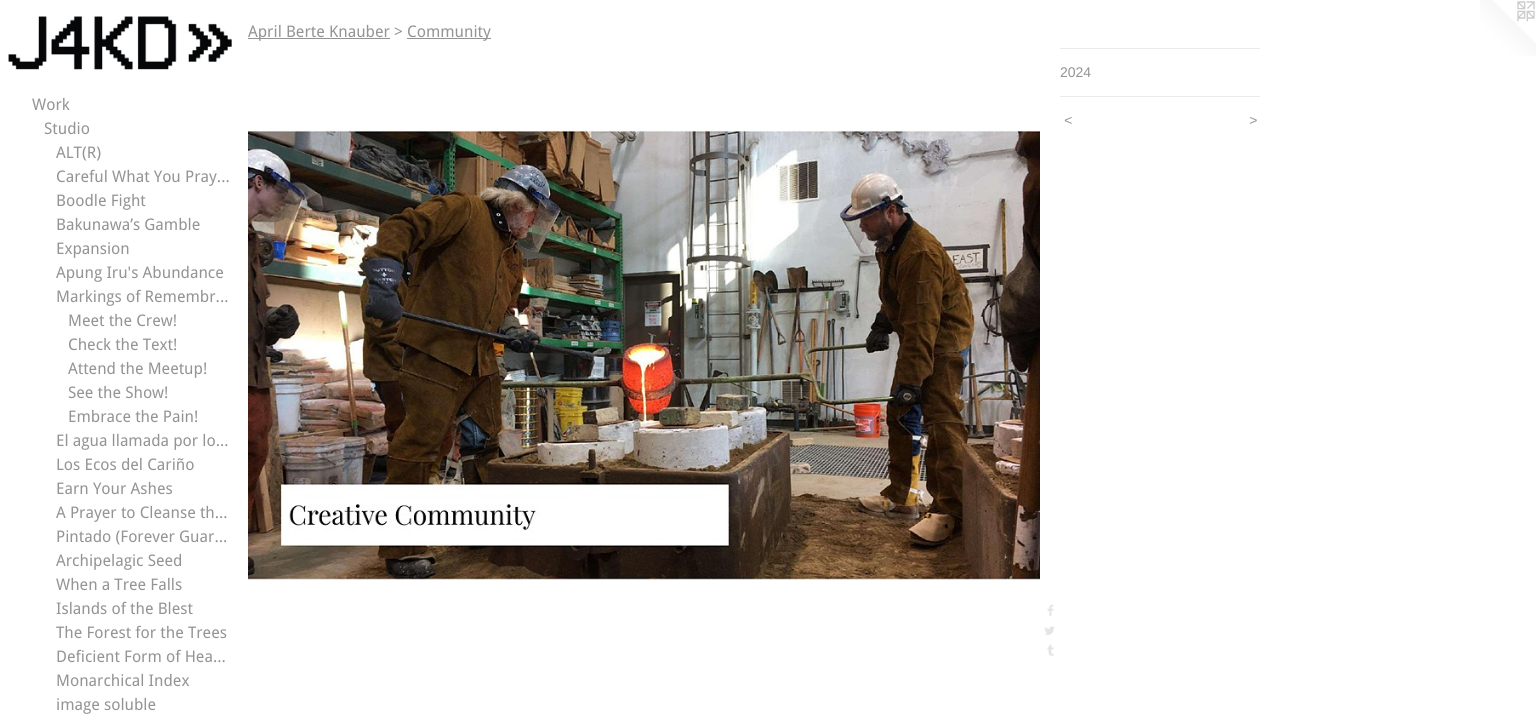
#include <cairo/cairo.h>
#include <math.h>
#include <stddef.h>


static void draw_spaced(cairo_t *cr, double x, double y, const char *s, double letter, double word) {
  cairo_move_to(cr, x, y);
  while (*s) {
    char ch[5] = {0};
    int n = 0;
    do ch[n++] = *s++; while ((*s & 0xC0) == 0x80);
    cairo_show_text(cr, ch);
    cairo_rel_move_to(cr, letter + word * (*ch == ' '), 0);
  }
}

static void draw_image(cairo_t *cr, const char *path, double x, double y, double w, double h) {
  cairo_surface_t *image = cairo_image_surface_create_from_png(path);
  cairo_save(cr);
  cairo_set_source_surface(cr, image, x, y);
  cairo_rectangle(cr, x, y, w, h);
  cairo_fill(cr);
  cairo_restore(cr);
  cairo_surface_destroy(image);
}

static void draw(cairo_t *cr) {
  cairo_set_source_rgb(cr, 1, 1, 1);
  cairo_paint(cr);
  cairo_set_source_rgb(cr, 148 / 255.0, 148 / 255.0, 148 / 255.0);
  cairo_rectangle(cr, 248, 38, 142, 1);
  cairo_fill(cr);
  cairo_rectangle(cr, 407, 38, 84, 1);
  cairo_fill(cr);
  cairo_set_source_rgb(cr, 234 / 255.0, 234 / 255.0, 234 / 255.0);
  cairo_rectangle(cr, 1060, 48, 200, 1);
  cairo_fill(cr);
  cairo_rectangle(cr, 1060, 96, 200, 1);
  cairo_fill(cr);
  draw_image(cr, "images/1.png", 248, 129, 792, 451);
  draw_image(cr, "images/2.png", 1047, 604, 7, 12);
  draw_image(cr, "images/3.png", 1044, 626, 11, 9);
  draw_image(cr, "images/4.png", 1047, 644, 7, 12);
  draw_image(cr, "images/5.png", 1480, 0, 56, 56);
  draw_image(cr, "images/6.png", 8, 16, 224, 54);
  cairo_select_font_face(cr, "Droid Sans", CAIRO_FONT_SLANT_NORMAL, CAIRO_FONT_WEIGHT_NORMAL);
  cairo_set_font_size(cr, 16);
  cairo_set_source_rgb(cr, 148 / 255.0, 148 / 255.0, 148 / 255.0);
  cairo_move_to(cr, 248, 37);
  cairo_show_text(cr, "April Berte Knauber >");
  cairo_move_to(cr, 407, 37);
  cairo_show_text(cr, "Community");
  cairo_select_font_face(cr, "Liberation Sans", CAIRO_FONT_SLANT_NORMAL, CAIRO_FONT_WEIGHT_NORMAL);
  cairo_set_font_size(cr, 14);
  cairo_move_to(cr, 1060, 77);
  cairo_show_text(cr, "2024");
  cairo_select_font_face(cr, "Liberation Sans", CAIRO_FONT_SLANT_ITALIC, CAIRO_FONT_WEIGHT_NORMAL);
  draw_spaced(cr, 1064, 125, "<", 1, 0);
  draw_spaced(cr, 1249, 125, ">", 1, 0);
  cairo_select_font_face(cr, "Droid Sans", CAIRO_FONT_SLANT_NORMAL, CAIRO_FONT_WEIGHT_NORMAL);
  cairo_set_font_size(cr, 16);
  cairo_move_to(cr, 32, 110);
  cairo_show_text(cr, "Work");
  cairo_move_to(cr, 44, 134);
  cairo_show_text(cr, "Studio");
  cairo_move_to(cr, 56, 158);
  cairo_show_text(cr, "ALT(R)");
  cairo_move_to(cr, 56, 182);
  cairo_show_text(cr, "Careful What You Pray...");
  cairo_move_to(cr, 56, 206);
  cairo_show_text(cr, "Boodle Fight");
  cairo_move_to(cr, 56, 230);
  cairo_show_text(cr, "Bakunawa’s Gamble");
  cairo_move_to(cr, 56, 254);
  cairo_show_text(cr, "Expansion");
  cairo_move_to(cr, 56, 278);
  cairo_show_text(cr, "Apung Iru's Abundance");
  cairo_move_to(cr, 56, 302);
  cairo_show_text(cr, "Markings of Remembr...");
  cairo_move_to(cr, 68, 326);
  cairo_show_text(cr, "Meet the Crew!");
  cairo_move_to(cr, 68, 350);
  cairo_show_text(cr, "Check the Text!");
  cairo_move_to(cr, 68, 374);
  cairo_show_text(cr, "Attend the Meetup!");
  cairo_move_to(cr, 68, 398);
  cairo_show_text(cr, "See the Show!");
  cairo_move_to(cr, 68, 422);
  cairo_show_text(cr, "Embrace the Pain!");
  cairo_move_to(cr, 56, 446);
  cairo_show_text(cr, "El agua llamada por lo...");
  cairo_move_to(cr, 56, 470);
  cairo_show_text(cr, "Los Ecos del Cariño");
  cairo_move_to(cr, 56, 494);
  cairo_show_text(cr, "Earn Your Ashes");
  cairo_move_to(cr, 56, 518);
  cairo_show_text(cr, "A Prayer to Cleanse th...");
  cairo_move_to(cr, 56, 542);
  cairo_show_text(cr, "Pintado (Forever Guar...");
  cairo_move_to(cr, 56, 566);
  cairo_show_text(cr, "Archipelagic Seed");
  cairo_move_to(cr, 56, 590);
  cairo_show_text(cr, "When a Tree Falls");
  cairo_move_to(cr, 56, 614);
  cairo_show_text(cr, "Islands of the Blest");
  cairo_move_to(cr, 56, 638);
  cairo_show_text(cr, "The Forest for the Trees");
  cairo_move_to(cr, 56, 662);
  cairo_show_text(cr, "Deficient Form of Hea...");
  cairo_move_to(cr, 56, 686);
  cairo_show_text(cr, "Monarchical Index");
  cairo_move_to(cr, 56, 710);
  cairo_show_text(cr, "image soluble");
}

int main(void) {
  cairo_surface_t *surface = cairo_image_surface_create(CAIRO_FORMAT_RGB24, 1536, 720);
  cairo_t *cr = cairo_create(surface);
  cairo_font_options_t *options = cairo_font_options_create();
  cairo_font_options_set_hint_metrics(options, CAIRO_HINT_METRICS_OFF);
  cairo_font_options_set_hint_style(options, CAIRO_HINT_STYLE_NONE);
  cairo_set_font_options(cr, options);
  cairo_set_miter_limit(cr, 4);
  draw(cr);
  cairo_surface_write_to_png(surface, "out.png");
  cairo_font_options_destroy(options);
  cairo_destroy(cr);
  cairo_surface_destroy(surface);
  return 0;
}
